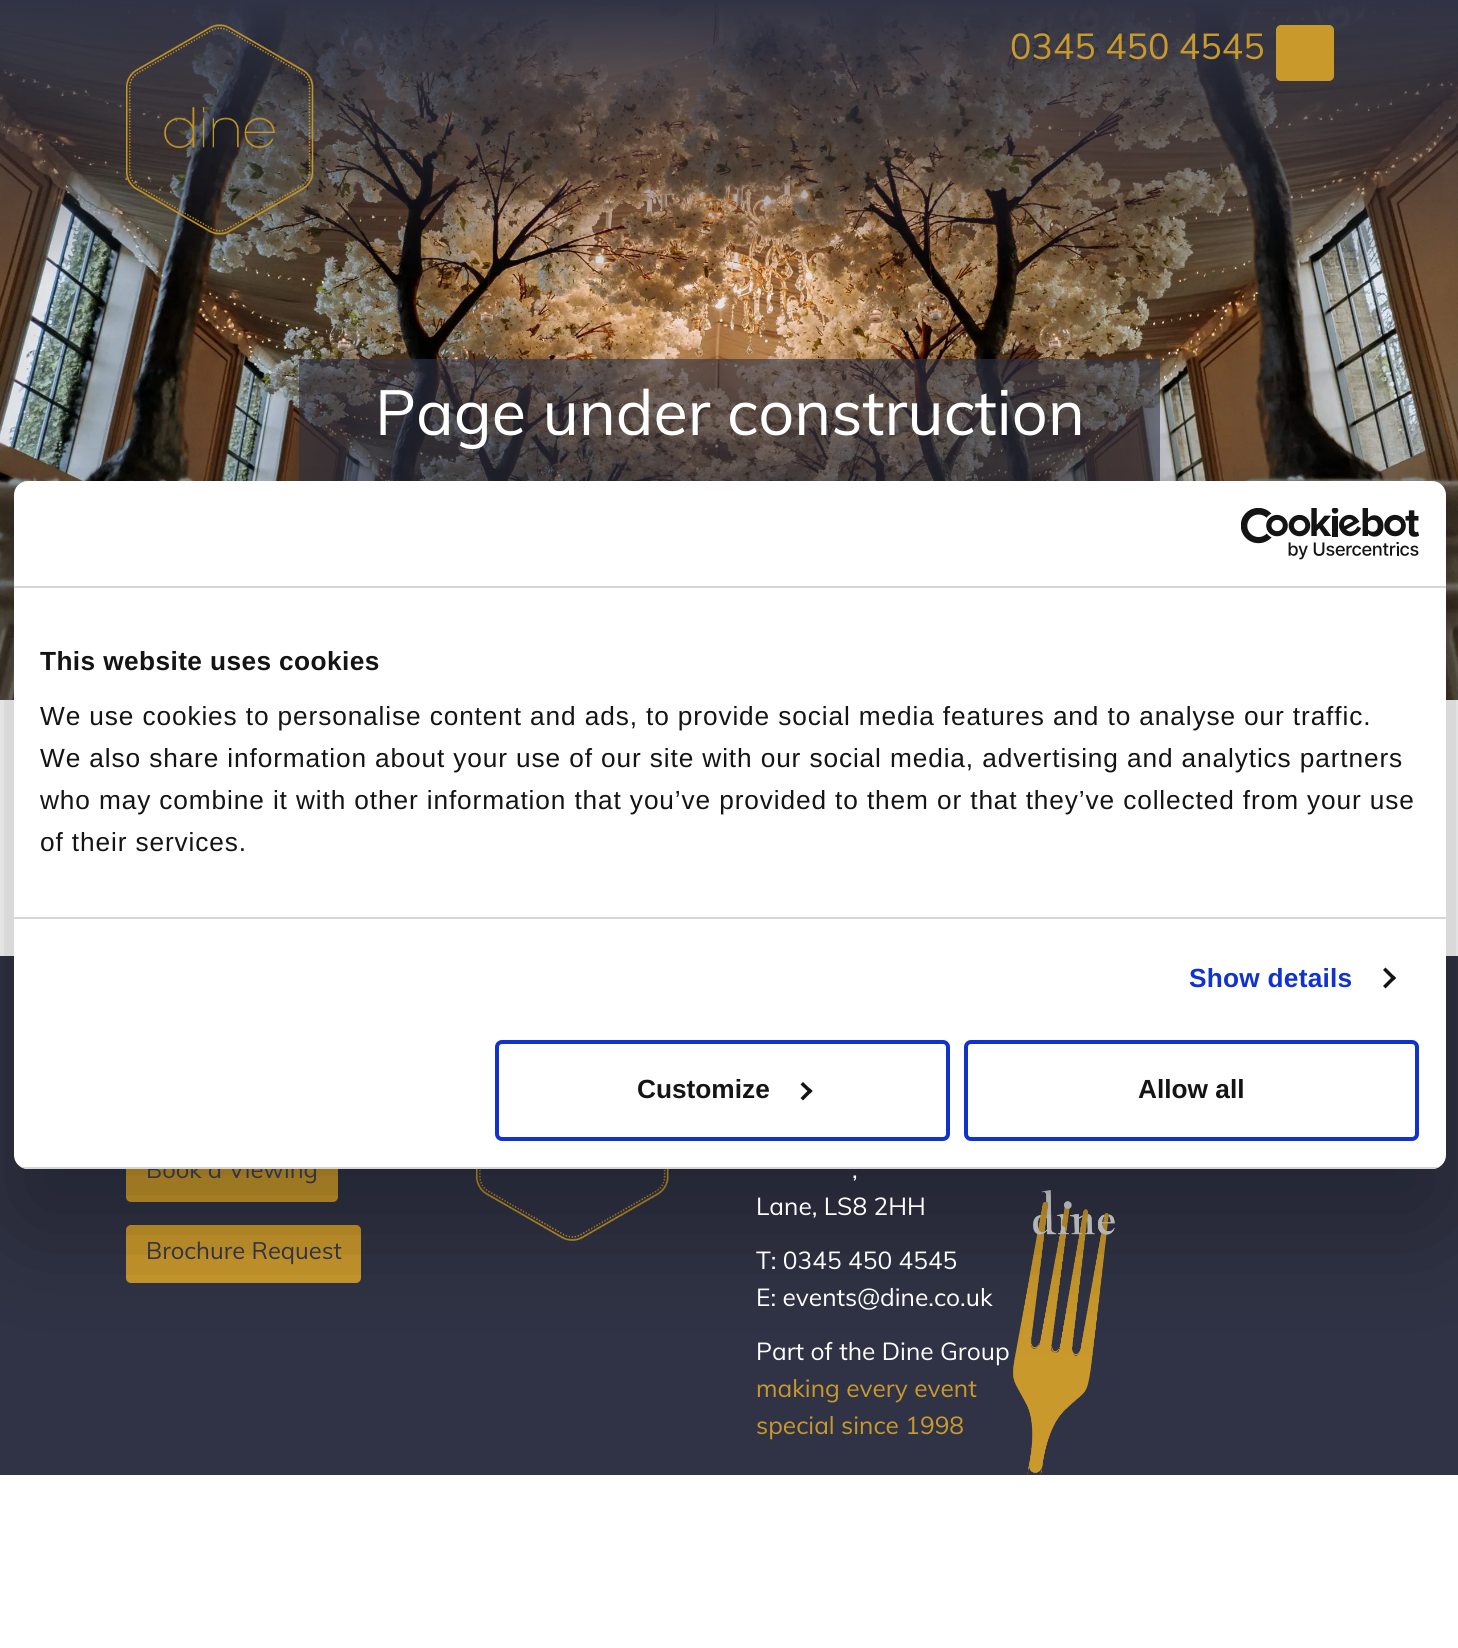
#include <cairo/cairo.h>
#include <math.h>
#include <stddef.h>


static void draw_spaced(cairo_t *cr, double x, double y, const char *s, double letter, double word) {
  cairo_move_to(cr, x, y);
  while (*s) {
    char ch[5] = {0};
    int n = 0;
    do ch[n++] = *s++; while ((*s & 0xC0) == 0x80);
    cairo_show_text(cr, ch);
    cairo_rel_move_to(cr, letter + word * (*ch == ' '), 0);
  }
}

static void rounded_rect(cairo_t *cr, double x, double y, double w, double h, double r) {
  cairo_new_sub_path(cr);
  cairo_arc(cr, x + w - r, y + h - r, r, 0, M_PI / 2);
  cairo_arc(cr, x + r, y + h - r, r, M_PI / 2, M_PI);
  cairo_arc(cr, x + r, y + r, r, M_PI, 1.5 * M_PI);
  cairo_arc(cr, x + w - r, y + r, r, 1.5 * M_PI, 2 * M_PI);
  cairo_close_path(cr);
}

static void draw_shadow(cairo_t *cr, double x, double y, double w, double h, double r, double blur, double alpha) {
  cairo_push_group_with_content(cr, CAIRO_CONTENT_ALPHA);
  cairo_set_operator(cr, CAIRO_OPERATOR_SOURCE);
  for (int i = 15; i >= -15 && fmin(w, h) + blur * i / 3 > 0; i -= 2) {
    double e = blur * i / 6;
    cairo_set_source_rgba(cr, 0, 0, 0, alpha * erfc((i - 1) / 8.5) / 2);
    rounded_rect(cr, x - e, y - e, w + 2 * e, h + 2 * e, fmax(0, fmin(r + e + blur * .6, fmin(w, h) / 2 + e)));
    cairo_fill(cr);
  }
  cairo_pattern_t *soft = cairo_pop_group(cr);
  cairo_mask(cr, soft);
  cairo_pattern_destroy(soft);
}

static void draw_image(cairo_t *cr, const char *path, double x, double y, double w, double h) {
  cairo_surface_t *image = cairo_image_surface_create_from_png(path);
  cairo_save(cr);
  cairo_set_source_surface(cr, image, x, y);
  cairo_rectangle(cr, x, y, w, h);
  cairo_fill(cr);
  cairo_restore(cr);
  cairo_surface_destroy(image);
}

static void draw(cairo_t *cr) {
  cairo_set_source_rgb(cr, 1, 1, 1);
  cairo_paint(cr);
  draw_image(cr, "images/2.png", 0, 0, 1458, 700);
  draw_image(cr, "images/1.png", 126, 24, 188, 211);
  cairo_set_source_rgb(cr, 202 / 255.0, 153 / 255.0, 44 / 255.0);
  rounded_rect(cr, 1277, 26, 56, 54, 4);
  cairo_fill_preserve(cr);
  cairo_stroke(cr);
  cairo_set_source_rgba(cr, 48 / 255.0, 51 / 255.0, 69 / 255.0, 0.6);
  cairo_rectangle(cr, 299, 359, 861, 122);
  cairo_fill(cr);
  cairo_set_source_rgb(cr, 48 / 255.0, 51 / 255.0, 69 / 255.0);
  cairo_rectangle(cr, 0, 956, 1458, 519);
  cairo_fill(cr);
  cairo_set_source_rgb(cr, 202 / 255.0, 153 / 255.0, 44 / 255.0);
  rounded_rect(cr, 127, 1146, 210, 55, 4);
  cairo_fill_preserve(cr);
  cairo_stroke(cr);
  rounded_rect(cr, 127, 1226, 233, 56, 4);
  cairo_fill_preserve(cr);
  cairo_stroke(cr);
  draw_image(cr, "images/4.png", 476, 1169, 193, 72);
  draw_image(cr, "images/5.png", 1013, 1190, 102, 286);
  cairo_set_source_rgb(cr, 0, 0, 0);
  draw_shadow(cr, 14, 537, 1432, 688, 14, 59.5, 0.3);
  cairo_select_font_face(cr, "Muli", CAIRO_FONT_SLANT_NORMAL, CAIRO_FONT_WEIGHT_NORMAL);
  cairo_set_font_size(cr, 35.75);
  cairo_set_source_rgb(cr, 202 / 255.0, 153 / 255.0, 44 / 255.0);
  cairo_move_to(cr, 1010, 59);
  cairo_show_text(cr, "0345 450 4545");
  cairo_set_font_size(cr, 63);
  cairo_set_source_rgb(cr, 1, 1, 1);
  cairo_move_to(cr, 375, 435);
  cairo_show_text(cr, "Page under construction");
  cairo_set_font_size(cr, 23.75);
  cairo_set_source_rgb(cr, 48 / 255.0, 51 / 255.0, 69 / 255.0);
  cairo_move_to(cr, 146, 1178);
  cairo_show_text(cr, "Book a Viewing");
  cairo_set_source_rgb(cr, 1, 1, 1);
  rounded_rect(cr, 14, 481, 1432, 688, 14);
  cairo_fill(cr);
  rounded_rect(cr, 497, 1042, 451, 97, 5);
  cairo_set_source_rgb(cr, 16 / 255.0, 50 / 255.0, 207 / 255.0);
  cairo_set_line_width(cr, 4);
  cairo_stroke(cr);
  cairo_set_source_rgb(cr, 20 / 255.0, 20 / 255.0, 20 / 255.0);
  cairo_new_path(cr);
  cairo_move_to(cr, 803, 1082);
  cairo_line_to(cr, 812.5, 1091);
  cairo_line_to(cr, 810, 1093.5);
  cairo_line_to(cr, 800.5, 1084.5);
  cairo_close_path(cr);
  cairo_fill(cr);
  cairo_new_path(cr);
  cairo_move_to(cr, 810, 1088.5);
  cairo_line_to(cr, 812.5, 1091);
  cairo_line_to(cr, 803, 1100.5);
  cairo_line_to(cr, 800.5, 1098);
  cairo_close_path(cr);
  cairo_fill(cr);
  rounded_rect(cr, 966, 1042, 451, 97, 5);
  cairo_set_source_rgb(cr, 16 / 255.0, 50 / 255.0, 207 / 255.0);
  cairo_stroke(cr);
  cairo_select_font_face(cr, "Liberation Sans", CAIRO_FONT_SLANT_NORMAL, CAIRO_FONT_WEIGHT_BOLD);
  cairo_set_font_size(cr, 26.25);
  cairo_set_source_rgb(cr, 20 / 255.0, 20 / 255.0, 20 / 255.0);
  cairo_move_to(cr, 1138, 1098);
  cairo_show_text(cr, "Allow all");
  cairo_move_to(cr, 637, 1098);
  cairo_show_text(cr, "Customize");
  cairo_save(cr);
  rounded_rect(cr, 14, 481, 1432, 688, 14);
  cairo_clip(cr);
  cairo_set_source_rgb(cr, 214 / 255.0, 214 / 255.0, 214 / 255.0);
  cairo_rectangle(cr, 14, 1167, 1432, 2);
  cairo_fill(cr);
  cairo_restore(cr);
  cairo_new_path(cr);
  cairo_move_to(cr, 1385.5, 967.5);
  cairo_line_to(cr, 1396, 978);
  cairo_line_to(cr, 1393.5, 980.5);
  cairo_line_to(cr, 1383, 970);
  cairo_close_path(cr);
  cairo_fill(cr);
  cairo_new_path(cr);
  cairo_move_to(cr, 1393.5, 975.5);
  cairo_line_to(cr, 1396, 978);
  cairo_line_to(cr, 1385.5, 988.5);
  cairo_line_to(cr, 1383, 986);
  cairo_close_path(cr);
  cairo_fill(cr);
  cairo_select_font_face(cr, "Liberation Sans", CAIRO_FONT_SLANT_NORMAL, CAIRO_FONT_WEIGHT_NORMAL);
  draw_spaced(cr, 40, 851, "of their services.", 0.88, 0);
  draw_spaced(cr, 40, 809, "who may combine it with other information that you’ve provided to them or that they’ve collected from your use", 0.88, 0);
  draw_spaced(cr, 40, 767, "We also share information about your use of our site with our social media, advertising and analytics partners", 0.88, 0);
  draw_spaced(cr, 40, 725, "We use cookies to personalise content and ads, to provide social media features and to analyse our traffic.", 0.88, 0);
  cairo_select_font_face(cr, "Liberation Sans", CAIRO_FONT_SLANT_NORMAL, CAIRO_FONT_WEIGHT_BOLD);
  draw_spaced(cr, 40, 670, "This website uses cookies", 0.4, 0);
  cairo_set_source_rgb(cr, 214 / 255.0, 214 / 255.0, 214 / 255.0);
  cairo_rectangle(cr, 14, 917, 1432, 2);
  cairo_fill(cr);
  cairo_set_source_rgb(cr, 16 / 255.0, 50 / 255.0, 207 / 255.0);
  draw_spaced(cr, 1189, 987, "Show details", 0.25, 0);
  draw_image(cr, "images/3.png", 1241, 508, 178, 52);
  cairo_set_source_rgb(cr, 214 / 255.0, 214 / 255.0, 214 / 255.0);
  cairo_rectangle(cr, 14, 586, 1432, 2);
  cairo_fill(cr);
  cairo_select_font_face(cr, "Muli", CAIRO_FONT_SLANT_NORMAL, CAIRO_FONT_WEIGHT_NORMAL);
  cairo_set_font_size(cr, 23.75);
  cairo_set_source_rgb(cr, 48 / 255.0, 51 / 255.0, 69 / 255.0);
  cairo_move_to(cr, 146, 1259);
  cairo_show_text(cr, "Brochure Request");
  cairo_set_font_size(cr, 24.5);
  cairo_set_source_rgb(cr, 1, 1, 1);
  cairo_move_to(cr, 852, 1178);
  cairo_show_text(cr, ",");
  cairo_move_to(cr, 756, 1215);
  cairo_show_text(cr, "Lane, LS8 2HH");
  cairo_move_to(cr, 756, 1269);
  cairo_show_text(cr, "T: 0345 450 4545");
  cairo_move_to(cr, 756, 1306);
  cairo_show_text(cr, "E: events@dine.co.uk");
  cairo_move_to(cr, 756, 1360);
  cairo_show_text(cr, "Part of the Dine Group");
  cairo_set_source_rgb(cr, 202 / 255.0, 153 / 255.0, 44 / 255.0);
  cairo_move_to(cr, 756, 1397);
  cairo_show_text(cr, "making every event");
  cairo_move_to(cr, 756, 1434);
  cairo_show_text(cr, "special since 1998");
}

int main(void) {
  cairo_surface_t *surface = cairo_image_surface_create(CAIRO_FORMAT_RGB24, 1458, 1648);
  cairo_t *cr = cairo_create(surface);
  cairo_font_options_t *options = cairo_font_options_create();
  cairo_font_options_set_hint_metrics(options, CAIRO_HINT_METRICS_OFF);
  cairo_font_options_set_hint_style(options, CAIRO_HINT_STYLE_NONE);
  cairo_set_font_options(cr, options);
  cairo_set_miter_limit(cr, 4);
  draw(cr);
  cairo_surface_write_to_png(surface, "out.png");
  cairo_font_options_destroy(options);
  cairo_destroy(cr);
  cairo_surface_destroy(surface);
  return 0;
}
